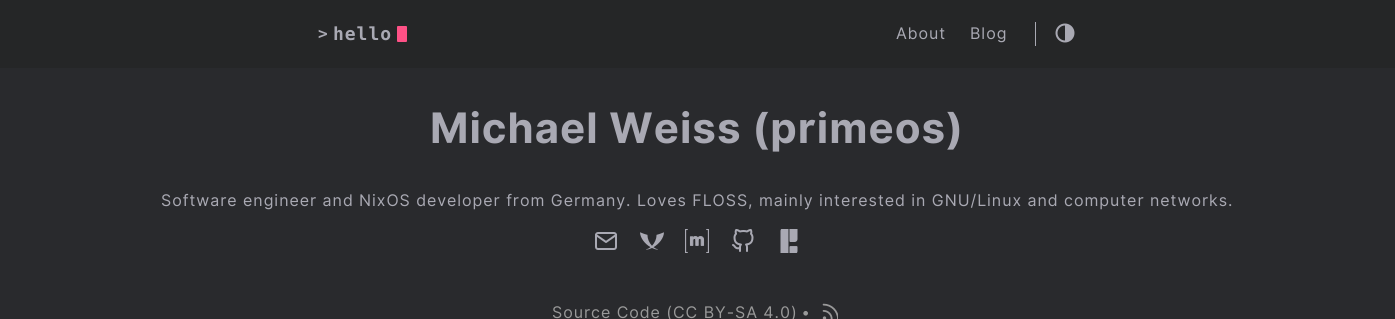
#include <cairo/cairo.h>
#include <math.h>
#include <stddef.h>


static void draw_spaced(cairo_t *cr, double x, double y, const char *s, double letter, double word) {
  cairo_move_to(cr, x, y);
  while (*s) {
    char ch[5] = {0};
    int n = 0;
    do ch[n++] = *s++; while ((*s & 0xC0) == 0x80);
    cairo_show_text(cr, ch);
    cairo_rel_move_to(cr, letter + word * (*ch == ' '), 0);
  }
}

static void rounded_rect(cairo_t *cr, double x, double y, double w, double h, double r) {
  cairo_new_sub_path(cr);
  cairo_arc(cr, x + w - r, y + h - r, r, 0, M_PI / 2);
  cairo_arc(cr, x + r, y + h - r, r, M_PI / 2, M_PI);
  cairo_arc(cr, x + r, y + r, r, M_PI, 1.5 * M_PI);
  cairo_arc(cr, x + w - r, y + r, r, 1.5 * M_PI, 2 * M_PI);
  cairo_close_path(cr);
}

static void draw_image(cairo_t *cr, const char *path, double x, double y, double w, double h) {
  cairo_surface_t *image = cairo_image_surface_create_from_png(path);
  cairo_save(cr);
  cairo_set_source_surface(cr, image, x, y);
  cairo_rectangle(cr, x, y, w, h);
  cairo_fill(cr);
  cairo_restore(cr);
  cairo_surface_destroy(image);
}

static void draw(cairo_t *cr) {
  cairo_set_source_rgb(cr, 41 / 255.0, 42 / 255.0, 45 / 255.0);
  cairo_paint(cr);
  cairo_set_source_rgb(cr, 37 / 255.0, 38 / 255.0, 39 / 255.0);
  cairo_rectangle(cr, 0, 0, 1395, 68);
  cairo_fill(cr);
  cairo_set_source_rgb(cr, 254 / 255.0, 81 / 255.0, 134 / 255.0);
  rounded_rect(cr, 397, 26, 10, 16, 1);
  cairo_fill(cr);
  cairo_set_source_rgb(cr, 169 / 255.0, 169 / 255.0, 179 / 255.0);
  cairo_rectangle(cr, 1035, 22, 1, 24);
  cairo_fill(cr);
  draw_image(cr, "images/1.png", 1055, 23, 20, 20);
  draw_image(cr, "images/2.png", 595, 232, 22, 18);
  draw_image(cr, "images/3.png", 640, 232, 24, 18);
  draw_image(cr, "images/4.png", 685, 229, 24, 24);
  draw_image(cr, "images/5.png", 732, 229, 22, 23);
  draw_image(cr, "images/6.png", 780, 229, 18, 24);
  draw_image(cr, "images/7.png", 822, 303, 16, 16);
  cairo_select_font_face(cr, "DejaVu Sans Mono", CAIRO_FONT_SLANT_NORMAL, CAIRO_FONT_WEIGHT_BOLD);
  cairo_set_font_size(cr, 16);
  draw_spaced(cr, 318, 39, ">", 0.96, 0);
  cairo_set_font_size(cr, 18);
  draw_spaced(cr, 333, 40, "hello", 0.96, 0);
  cairo_select_font_face(cr, "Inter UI", CAIRO_FONT_SLANT_NORMAL, CAIRO_FONT_WEIGHT_NORMAL);
  cairo_set_font_size(cr, 16);
  draw_spaced(cr, 896, 39, "About", 0.96, 0);
  draw_spaced(cr, 970, 39, "Blog", 0.96, 0);
  cairo_select_font_face(cr, "Inter UI", CAIRO_FONT_SLANT_NORMAL, CAIRO_FONT_WEIGHT_BOLD);
  cairo_set_font_size(cr, 42);
  draw_spaced(cr, 430, 143, "Michael Weiss (primeos)", 0.96, 0);
  cairo_select_font_face(cr, "Inter UI", CAIRO_FONT_SLANT_NORMAL, CAIRO_FONT_WEIGHT_NORMAL);
  cairo_set_font_size(cr, 16);
  draw_spaced(cr, 161, 206, "Software engineer and NixOS developer from Germany. Loves FLOSS, mainly interested in GNU/Linux and computer networks.", 0.96, 0);
  cairo_set_source_rgb(cr, 153 / 255.0, 153 / 255.0, 153 / 255.0);
  draw_spaced(cr, 552, 318, "Source Code (CC BY-SA 4.0)", 0.96, 0);
  draw_spaced(cr, 802, 318, "•", 0.96, 0);
}

int main(void) {
  cairo_surface_t *surface = cairo_image_surface_create(CAIRO_FORMAT_RGB24, 1395, 319);
  cairo_t *cr = cairo_create(surface);
  cairo_font_options_t *options = cairo_font_options_create();
  cairo_font_options_set_hint_metrics(options, CAIRO_HINT_METRICS_OFF);
  cairo_font_options_set_hint_style(options, CAIRO_HINT_STYLE_NONE);
  cairo_set_font_options(cr, options);
  cairo_set_miter_limit(cr, 4);
  draw(cr);
  cairo_surface_write_to_png(surface, "out.png");
  cairo_font_options_destroy(options);
  cairo_destroy(cr);
  cairo_surface_destroy(surface);
  return 0;
}
